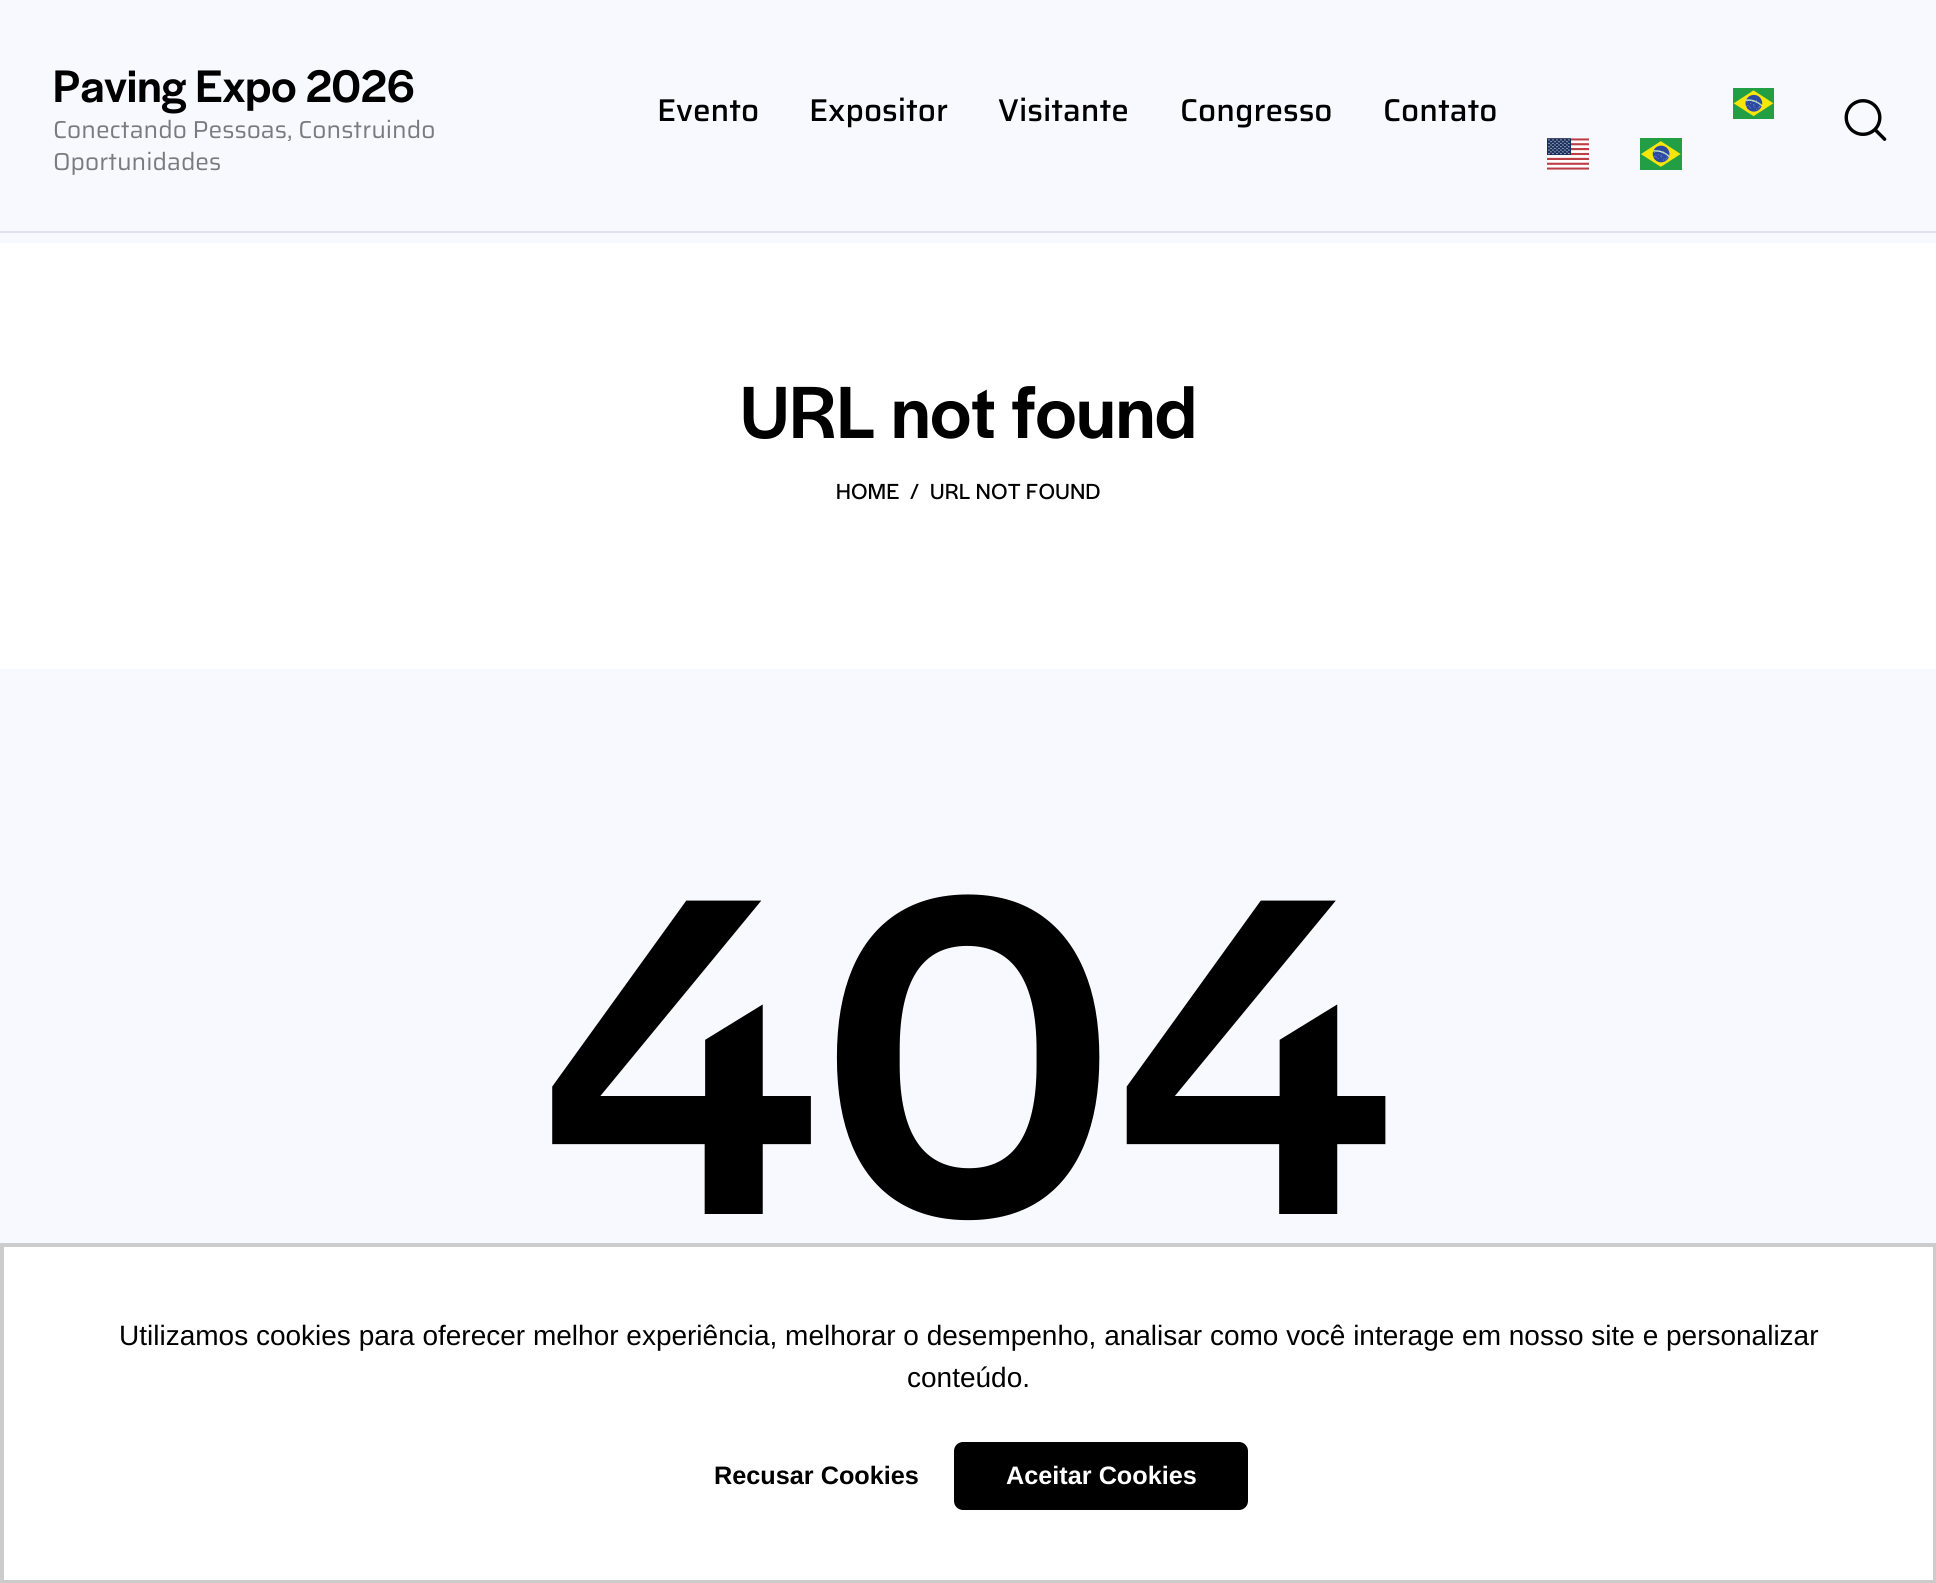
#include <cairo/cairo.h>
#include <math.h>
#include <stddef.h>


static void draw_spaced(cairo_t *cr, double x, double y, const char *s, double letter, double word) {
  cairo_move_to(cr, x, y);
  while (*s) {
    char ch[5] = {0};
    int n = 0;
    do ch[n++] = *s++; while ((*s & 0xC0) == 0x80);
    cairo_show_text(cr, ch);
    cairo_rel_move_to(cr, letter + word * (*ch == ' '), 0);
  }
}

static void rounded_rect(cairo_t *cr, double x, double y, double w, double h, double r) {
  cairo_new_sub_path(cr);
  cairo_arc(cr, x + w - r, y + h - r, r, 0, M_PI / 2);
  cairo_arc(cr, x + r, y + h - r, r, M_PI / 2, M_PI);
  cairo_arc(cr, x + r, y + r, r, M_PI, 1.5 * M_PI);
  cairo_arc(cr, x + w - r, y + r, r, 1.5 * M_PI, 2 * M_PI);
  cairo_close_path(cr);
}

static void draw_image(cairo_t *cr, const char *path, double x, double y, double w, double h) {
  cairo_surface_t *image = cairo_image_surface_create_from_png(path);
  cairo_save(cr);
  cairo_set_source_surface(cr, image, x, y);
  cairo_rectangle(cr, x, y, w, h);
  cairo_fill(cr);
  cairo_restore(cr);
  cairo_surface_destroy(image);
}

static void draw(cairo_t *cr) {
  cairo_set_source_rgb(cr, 248 / 255.0, 248 / 255.0, 1);
  cairo_paint(cr);
  cairo_set_source_rgb(cr, 224 / 255.0, 224 / 255.0, 242 / 255.0);
  cairo_rectangle(cr, 0, 231, 1936, 2);
  cairo_fill(cr);
  draw_image(cr, "images/1.png", 1733, 88, 41, 31);
  draw_image(cr, "images/2.png", 1547, 138, 42, 32);
  draw_image(cr, "images/3.png", 1640, 138, 42, 32);
  draw_image(cr, "images/4.png", 1844, 99, 43, 42);
  cairo_set_source_rgb(cr, 1, 1, 1);
  cairo_rectangle(cr, 0, 243, 1936, 426);
  cairo_fill(cr);
  cairo_rectangle(cr, 2, 1245, 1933, 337);
  cairo_fill_preserve(cr);
  cairo_set_source_rgb(cr, 204 / 255.0, 204 / 255.0, 204 / 255.0);
  cairo_set_line_width(cr, 4);
  cairo_stroke(cr);
  cairo_set_source_rgb(cr, 0, 0, 0);
  rounded_rect(cr, 954, 1442, 294, 68, 9);
  cairo_fill(cr);
  cairo_select_font_face(cr, "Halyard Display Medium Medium", CAIRO_FONT_SLANT_NORMAL, CAIRO_FONT_WEIGHT_NORMAL);
  cairo_set_font_size(cr, 47.5);
  cairo_move_to(cr, 53, 102);
  cairo_show_text(cr, "Paving Expo 2026");
  cairo_select_font_face(cr, "Saira", CAIRO_FONT_SLANT_NORMAL, CAIRO_FONT_WEIGHT_NORMAL);
  cairo_set_font_size(cr, 24.5);
  cairo_set_source_rgb(cr, 121 / 255.0, 124 / 255.0, 127 / 255.0);
  cairo_move_to(cr, 53, 138);
  cairo_show_text(cr, "Conectando Pessoas, Construindo");
  cairo_move_to(cr, 53, 170);
  cairo_show_text(cr, "Oportunidades");
  cairo_select_font_face(cr, "Saira Medium", CAIRO_FONT_SLANT_NORMAL, CAIRO_FONT_WEIGHT_NORMAL);
  cairo_set_font_size(cr, 31.5);
  cairo_set_source_rgb(cr, 0, 0, 0);
  cairo_move_to(cr, 657, 121);
  cairo_show_text(cr, "Evento");
  cairo_move_to(cr, 809, 121);
  cairo_show_text(cr, "Expositor");
  cairo_move_to(cr, 998, 121);
  cairo_show_text(cr, "Visitante");
  cairo_move_to(cr, 1180, 121);
  cairo_show_text(cr, "Congresso");
  cairo_move_to(cr, 1383, 121);
  cairo_show_text(cr, "Contato");
  cairo_select_font_face(cr, "Halyard Display Medium Medium", CAIRO_FONT_SLANT_NORMAL, CAIRO_FONT_WEIGHT_NORMAL);
  cairo_set_font_size(cr, 77);
  cairo_move_to(cr, 740, 438);
  cairo_show_text(cr, "URL not found");
  cairo_select_font_face(cr, "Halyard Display", CAIRO_FONT_SLANT_NORMAL, CAIRO_FONT_WEIGHT_NORMAL);
  cairo_set_font_size(cr, 22.75);
  draw_spaced(cr, 836, 499, "HOME", 0.5, 0);
  draw_spaced(cr, 910, 499, "/", 0.5, 0);
  draw_spaced(cr, 930, 499, "URL NOT FOUND", 0.5, 0);
  cairo_select_font_face(cr, "Halyard Display Medium Medium", CAIRO_FONT_SLANT_NORMAL, CAIRO_FONT_WEIGHT_NORMAL);
  cairo_set_font_size(cr, 472);
  cairo_move_to(cr, 539, 1214);
  cairo_show_text(cr, "404");
  cairo_select_font_face(cr, "Liberation Sans", CAIRO_FONT_SLANT_NORMAL, CAIRO_FONT_WEIGHT_NORMAL);
  cairo_set_font_size(cr, 28);
  cairo_move_to(cr, 119, 1345);
  cairo_show_text(cr, "Utilizamos cookies para oferecer melhor experiência, melhorar o desempenho, analisar como você interage em nosso site e personalizar");
  cairo_move_to(cr, 907, 1387);
  cairo_show_text(cr, "conteúdo.");
  cairo_select_font_face(cr, "Liberation Sans", CAIRO_FONT_SLANT_NORMAL, CAIRO_FONT_WEIGHT_BOLD);
  cairo_set_font_size(cr, 25.25);
  cairo_move_to(cr, 714, 1484);
  cairo_show_text(cr, "Recusar Cookies");
  cairo_set_source_rgb(cr, 1, 1, 1);
  cairo_move_to(cr, 1006, 1484);
  cairo_show_text(cr, "Aceitar Cookies");
}

int main(void) {
  cairo_surface_t *surface = cairo_image_surface_create(CAIRO_FORMAT_RGB24, 1936, 1583);
  cairo_t *cr = cairo_create(surface);
  cairo_font_options_t *options = cairo_font_options_create();
  cairo_font_options_set_hint_metrics(options, CAIRO_HINT_METRICS_OFF);
  cairo_font_options_set_hint_style(options, CAIRO_HINT_STYLE_NONE);
  cairo_set_font_options(cr, options);
  cairo_set_miter_limit(cr, 4);
  draw(cr);
  cairo_surface_write_to_png(surface, "out.png");
  cairo_font_options_destroy(options);
  cairo_destroy(cr);
  cairo_surface_destroy(surface);
  return 0;
}
